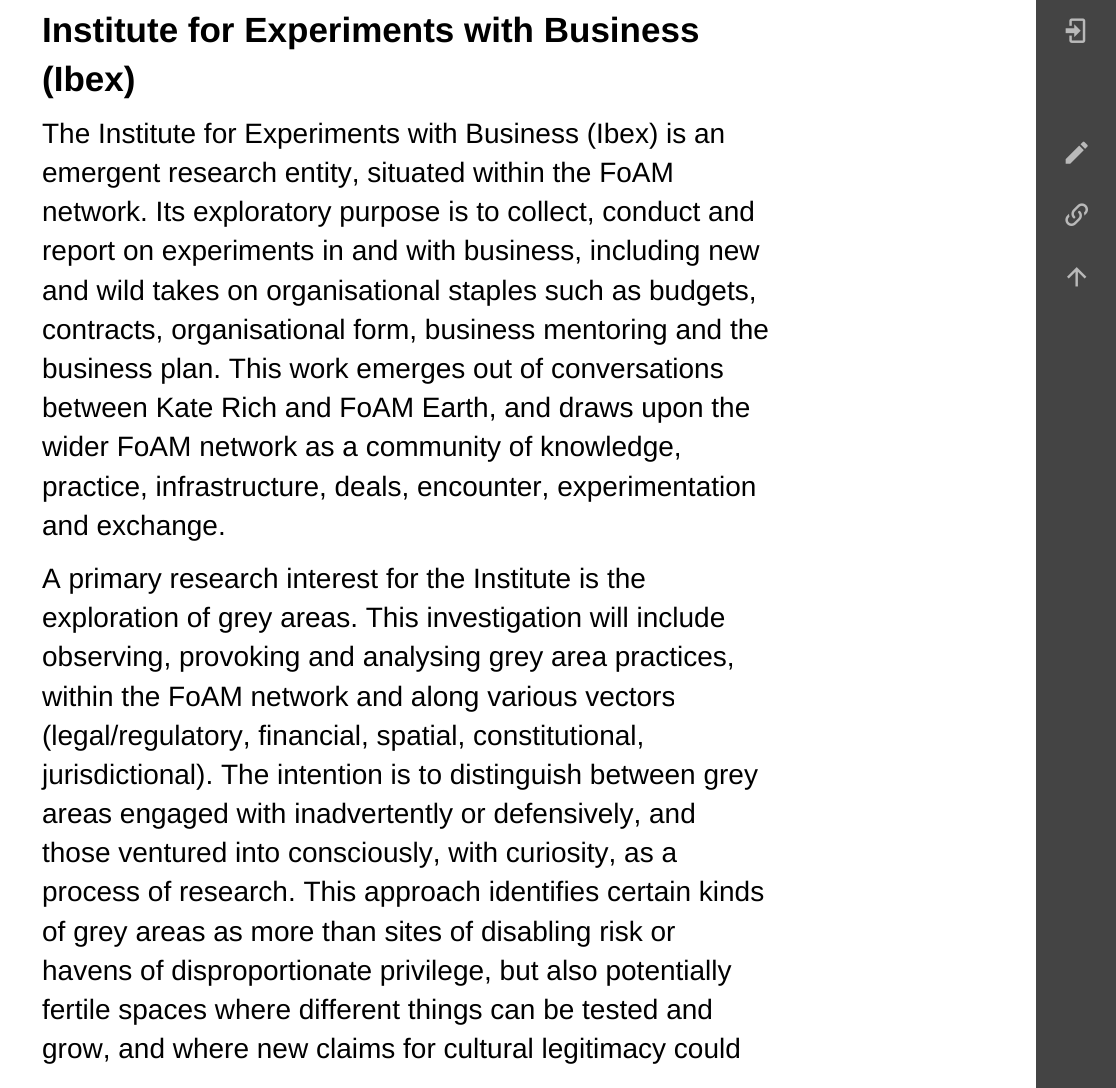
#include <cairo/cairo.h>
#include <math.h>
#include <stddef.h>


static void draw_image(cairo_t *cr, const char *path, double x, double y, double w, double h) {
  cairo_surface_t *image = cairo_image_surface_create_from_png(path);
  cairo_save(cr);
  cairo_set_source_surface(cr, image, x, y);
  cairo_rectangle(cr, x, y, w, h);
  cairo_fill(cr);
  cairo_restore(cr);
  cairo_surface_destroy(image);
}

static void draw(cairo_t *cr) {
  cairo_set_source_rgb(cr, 1, 1, 1);
  cairo_paint(cr);
  cairo_set_source_rgb(cr, 68 / 255.0, 68 / 255.0, 68 / 255.0);
  cairo_rectangle(cr, 1036, 0, 80, 1088);
  cairo_fill(cr);
  draw_image(cr, "images/1.png", 1065, 18, 21, 25);
  draw_image(cr, "images/2.png", 1065, 141, 23, 23);
  draw_image(cr, "images/3.png", 1065, 203, 23, 23);
  draw_image(cr, "images/4.png", 1067, 267, 20, 20);
  cairo_select_font_face(cr, "Liberation Sans", CAIRO_FONT_SLANT_NORMAL, CAIRO_FONT_WEIGHT_BOLD);
  cairo_set_font_size(cr, 35);
  cairo_set_source_rgb(cr, 0, 0, 0);
  cairo_move_to(cr, 42, 42);
  cairo_show_text(cr, "Institute for Experiments with Business");
  cairo_move_to(cr, 42, 91);
  cairo_show_text(cr, "(Ibex)");
  cairo_select_font_face(cr, "Liberation Sans", CAIRO_FONT_SLANT_NORMAL, CAIRO_FONT_WEIGHT_NORMAL);
  cairo_set_font_size(cr, 28);
  cairo_move_to(cr, 42, 143);
  cairo_show_text(cr, "The Institute for Experiments with Business (Ibex) is an");
  cairo_move_to(cr, 42, 182);
  cairo_show_text(cr, "emergent research entity, situated within the FoAM");
  cairo_move_to(cr, 42, 221);
  cairo_show_text(cr, "network. Its exploratory purpose is to collect, conduct and");
  cairo_move_to(cr, 42, 260);
  cairo_show_text(cr, "report on experiments in and with business, including new");
  cairo_move_to(cr, 42, 300);
  cairo_show_text(cr, "and wild takes on organisational staples such as budgets,");
  cairo_move_to(cr, 42, 339);
  cairo_show_text(cr, "contracts, organisational form, business mentoring and the");
  cairo_move_to(cr, 42, 378);
  cairo_show_text(cr, "business plan. This work emerges out of conversations");
  cairo_move_to(cr, 42, 417);
  cairo_show_text(cr, "between Kate Rich and FoAM Earth, and draws upon the");
  cairo_move_to(cr, 42, 456);
  cairo_show_text(cr, "wider FoAM network as a community of knowledge,");
  cairo_move_to(cr, 42, 496);
  cairo_show_text(cr, "practice, infrastructure, deals, encounter, experimentation");
  cairo_move_to(cr, 42, 535);
  cairo_show_text(cr, "and exchange.");
  cairo_move_to(cr, 42, 588);
  cairo_show_text(cr, "A primary research interest for the Institute is the");
  cairo_move_to(cr, 42, 627);
  cairo_show_text(cr, "exploration of grey areas. This investigation will include");
  cairo_move_to(cr, 42, 666);
  cairo_show_text(cr, "observing, provoking and analysing grey area practices,");
  cairo_move_to(cr, 42, 706);
  cairo_show_text(cr, "within the FoAM network and along various vectors");
  cairo_move_to(cr, 42, 745);
  cairo_show_text(cr, "(legal/regulatory, financial, spatial, constitutional,");
  cairo_move_to(cr, 42, 784);
  cairo_show_text(cr, "jurisdictional). The intention is to distinguish between grey");
  cairo_move_to(cr, 42, 823);
  cairo_show_text(cr, "areas engaged with inadvertently or defensively, and");
  cairo_move_to(cr, 42, 862);
  cairo_show_text(cr, "those ventured into consciously, with curiosity, as a");
  cairo_move_to(cr, 42, 901);
  cairo_show_text(cr, "process of research. This approach identifies certain kinds");
  cairo_move_to(cr, 42, 941);
  cairo_show_text(cr, "of grey areas as more than sites of disabling risk or");
  cairo_move_to(cr, 42, 980);
  cairo_show_text(cr, "havens of disproportionate privilege, but also potentially");
  cairo_move_to(cr, 42, 1019);
  cairo_show_text(cr, "fertile spaces where different things can be tested and");
  cairo_move_to(cr, 42, 1058);
  cairo_show_text(cr, "grow, and where new claims for cultural legitimacy could");
}

int main(void) {
  cairo_surface_t *surface = cairo_image_surface_create(CAIRO_FORMAT_RGB24, 1116, 1088);
  cairo_t *cr = cairo_create(surface);
  cairo_font_options_t *options = cairo_font_options_create();
  cairo_font_options_set_hint_metrics(options, CAIRO_HINT_METRICS_OFF);
  cairo_font_options_set_hint_style(options, CAIRO_HINT_STYLE_NONE);
  cairo_set_font_options(cr, options);
  cairo_set_miter_limit(cr, 4);
  draw(cr);
  cairo_surface_write_to_png(surface, "out.png");
  cairo_font_options_destroy(options);
  cairo_destroy(cr);
  cairo_surface_destroy(surface);
  return 0;
}
